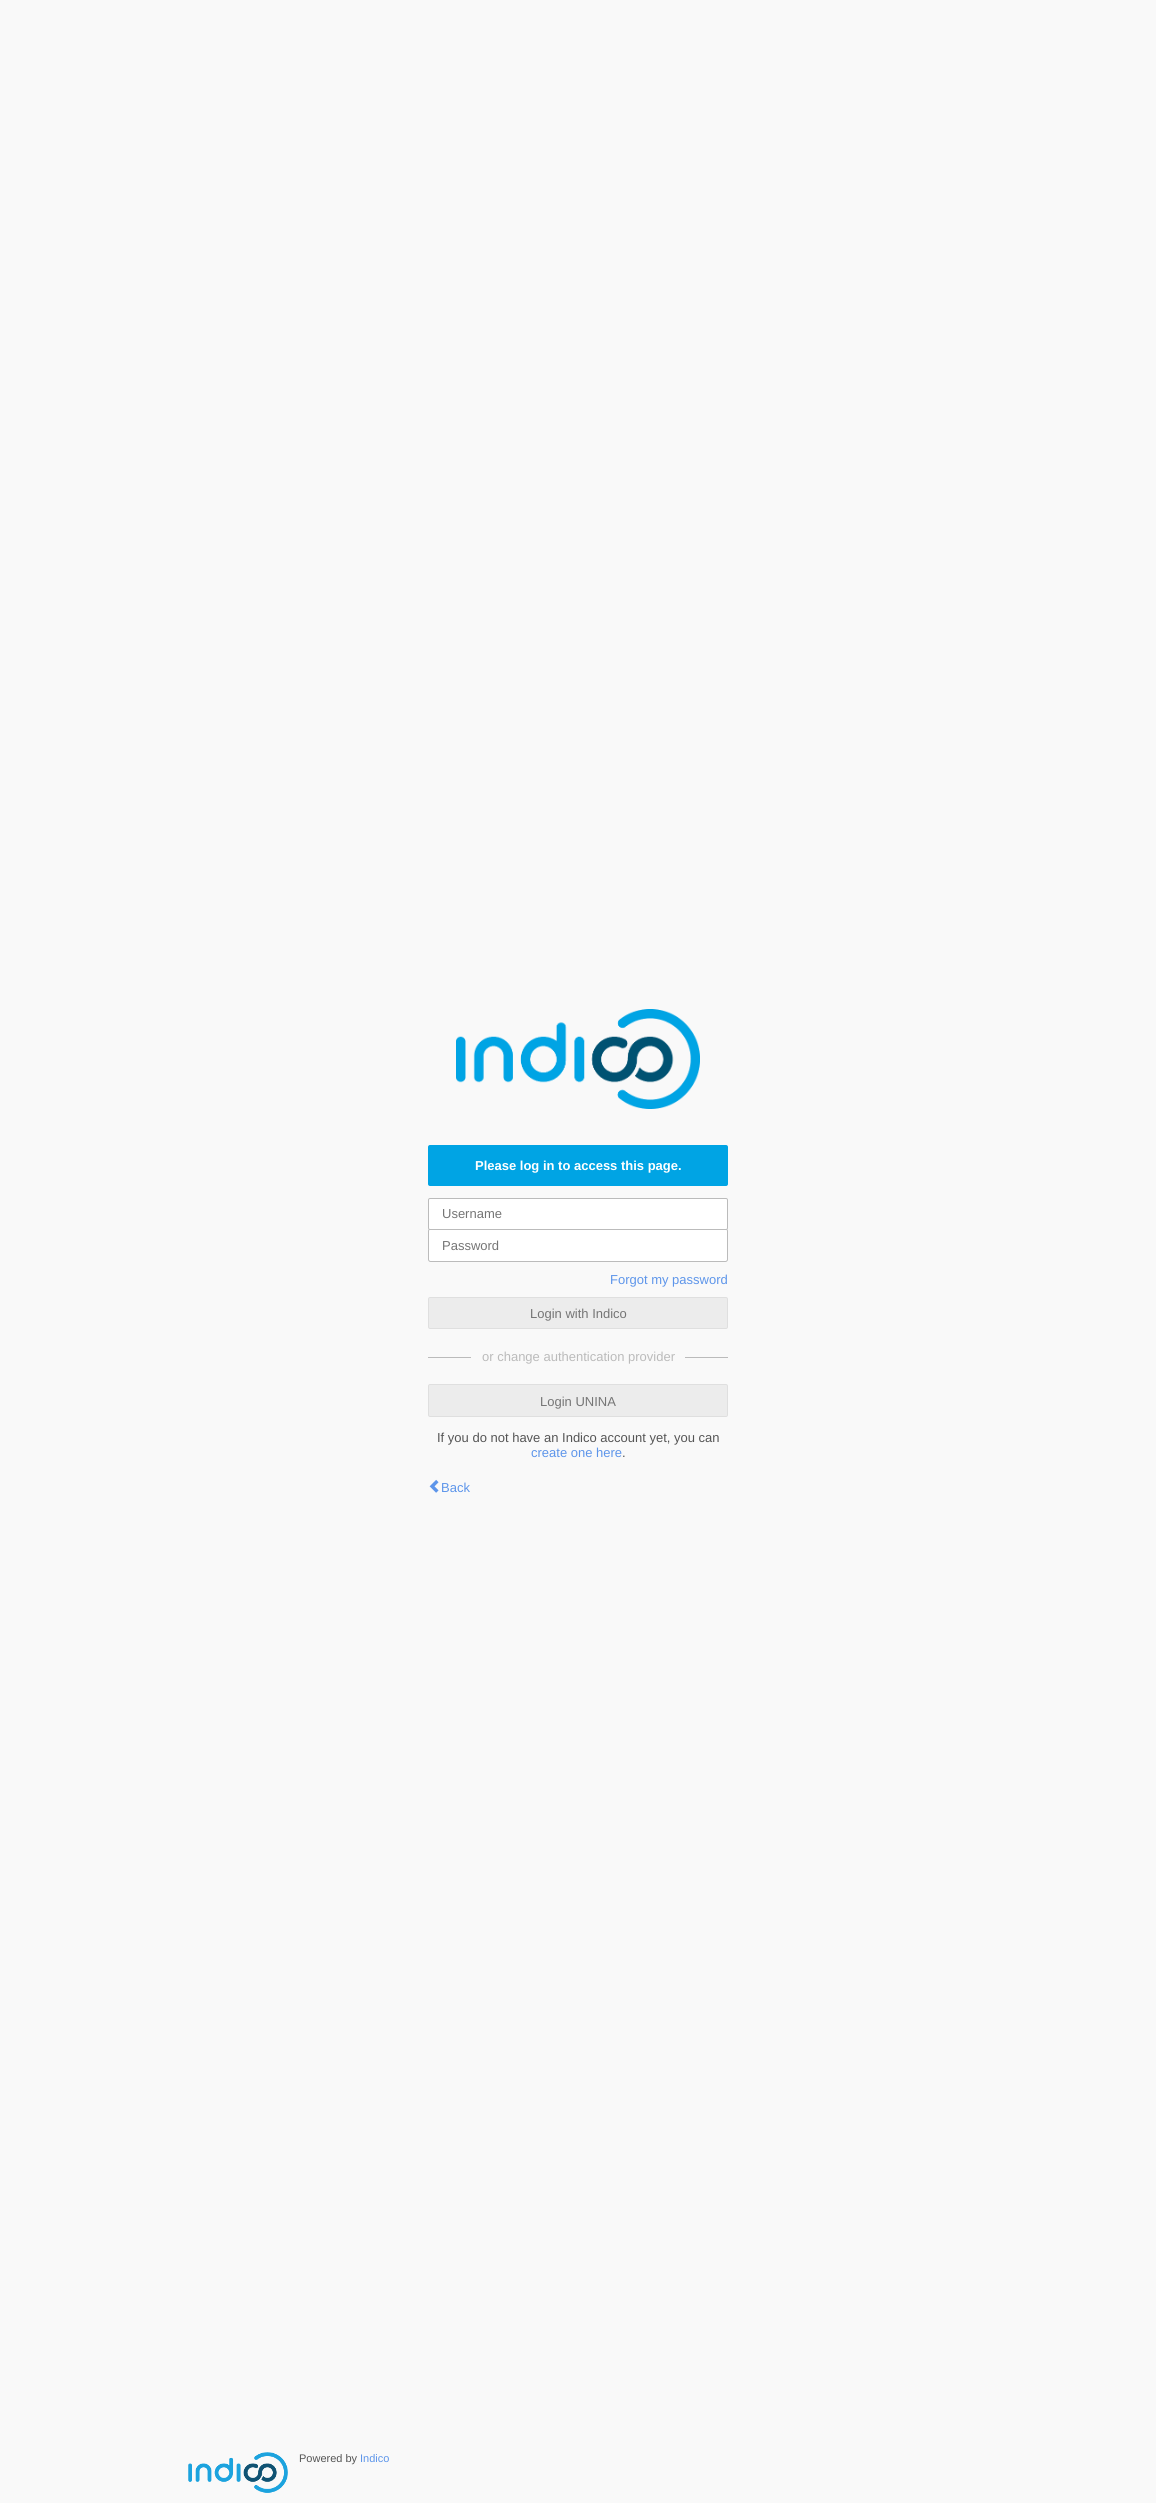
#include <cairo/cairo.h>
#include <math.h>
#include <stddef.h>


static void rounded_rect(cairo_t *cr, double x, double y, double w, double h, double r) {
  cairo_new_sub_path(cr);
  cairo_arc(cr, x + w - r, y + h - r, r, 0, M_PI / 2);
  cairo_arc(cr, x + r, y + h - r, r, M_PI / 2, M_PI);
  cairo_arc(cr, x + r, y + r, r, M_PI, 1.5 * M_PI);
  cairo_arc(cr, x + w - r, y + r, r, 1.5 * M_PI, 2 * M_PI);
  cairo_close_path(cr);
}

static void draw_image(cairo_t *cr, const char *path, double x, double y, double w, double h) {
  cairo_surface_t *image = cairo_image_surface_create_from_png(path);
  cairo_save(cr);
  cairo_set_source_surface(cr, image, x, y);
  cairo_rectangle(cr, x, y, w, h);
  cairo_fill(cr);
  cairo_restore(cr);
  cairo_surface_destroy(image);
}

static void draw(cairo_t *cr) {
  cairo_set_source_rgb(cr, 249 / 255.0, 249 / 255.0, 249 / 255.0);
  cairo_paint(cr);
  draw_image(cr, "images/1.png", 456, 1009, 244, 100);
  cairo_set_source_rgb(cr, 0, 164 / 255.0, 228 / 255.0);
  rounded_rect(cr, 428, 1145, 300, 41, 2);
  cairo_fill(cr);
  cairo_set_source_rgb(cr, 1, 1, 1);
  rounded_rect(cr, 428.5, 1198.5, 299, 31, 1.5);
  cairo_fill_preserve(cr);
  cairo_set_source_rgb(cr, 187 / 255.0, 187 / 255.0, 187 / 255.0);
  cairo_set_line_width(cr, 1);
  cairo_stroke(cr);
  cairo_set_source_rgb(cr, 1, 1, 1);
  cairo_new_path(cr);
  cairo_move_to(cr, 430, 1229.5);
  cairo_line_to(cr, 726, 1229.5);
  cairo_curve_to(cr, 727, 1229.5, 727.5, 1230, 727.5, 1231);
  cairo_line_to(cr, 727.5, 1259.5);
  cairo_curve_to(cr, 727.5, 1260.5, 726.5, 1261.5, 725.5, 1261.5);
  cairo_line_to(cr, 430.5, 1261.5);
  cairo_curve_to(cr, 429.5, 1261.5, 428.5, 1260.5, 428.5, 1259.5);
  cairo_line_to(cr, 428.5, 1231);
  cairo_curve_to(cr, 428.5, 1230, 429, 1229.5, 430, 1229.5);
  cairo_close_path(cr);
  cairo_fill_preserve(cr);
  cairo_set_source_rgb(cr, 187 / 255.0, 187 / 255.0, 187 / 255.0);
  cairo_stroke(cr);
  cairo_set_source_rgb(cr, 236 / 255.0, 236 / 255.0, 236 / 255.0);
  rounded_rect(cr, 428.5, 1297.5, 299, 31, 1.5);
  cairo_fill_preserve(cr);
  cairo_set_source_rgb(cr, 223 / 255.0, 223 / 255.0, 223 / 255.0);
  cairo_stroke(cr);
  cairo_set_source_rgb(cr, 187 / 255.0, 187 / 255.0, 187 / 255.0);
  cairo_rectangle(cr, 428, 1357, 43, 1);
  cairo_fill(cr);
  cairo_rectangle(cr, 685, 1357, 43, 1);
  cairo_fill(cr);
  cairo_set_source_rgb(cr, 236 / 255.0, 236 / 255.0, 236 / 255.0);
  rounded_rect(cr, 428.5, 1384.5, 299, 32, 1.5);
  cairo_fill_preserve(cr);
  cairo_set_source_rgb(cr, 223 / 255.0, 223 / 255.0, 223 / 255.0);
  cairo_stroke(cr);
  draw_image(cr, "images/2.png", 429, 1479, 10, 14);
  draw_image(cr, "images/3.png", 188, 2452, 100, 41);
  cairo_select_font_face(cr, "Liberation Sans", CAIRO_FONT_SLANT_NORMAL, CAIRO_FONT_WEIGHT_BOLD);
  cairo_set_font_size(cr, 13);
  cairo_set_source_rgb(cr, 1, 1, 1);
  cairo_move_to(cr, 475, 1170);
  cairo_show_text(cr, "Please log in to access this page.");
  cairo_select_font_face(cr, "Liberation Sans", CAIRO_FONT_SLANT_NORMAL, CAIRO_FONT_WEIGHT_NORMAL);
  cairo_set_source_rgb(cr, 117 / 255.0, 117 / 255.0, 117 / 255.0);
  cairo_move_to(cr, 442, 1218);
  cairo_show_text(cr, "Username");
  cairo_move_to(cr, 442, 1250);
  cairo_show_text(cr, "Password");
  cairo_set_source_rgb(cr, 93 / 255.0, 149 / 255.0, 234 / 255.0);
  cairo_move_to(cr, 610, 1284);
  cairo_show_text(cr, "Forgot my password");
  cairo_set_source_rgb(cr, 117 / 255.0, 117 / 255.0, 117 / 255.0);
  cairo_move_to(cr, 530, 1318);
  cairo_show_text(cr, "Login with Indico");
  cairo_set_source_rgb(cr, 187 / 255.0, 187 / 255.0, 187 / 255.0);
  cairo_move_to(cr, 482, 1361);
  cairo_show_text(cr, "or change authentication provider");
  cairo_set_source_rgb(cr, 117 / 255.0, 117 / 255.0, 117 / 255.0);
  cairo_move_to(cr, 540, 1406);
  cairo_show_text(cr, "Login UNINA");
  cairo_set_source_rgb(cr, 85 / 255.0, 85 / 255.0, 85 / 255.0);
  cairo_move_to(cr, 437, 1442);
  cairo_show_text(cr, "If you do not have an Indico account yet, you can");
  cairo_set_source_rgb(cr, 93 / 255.0, 149 / 255.0, 234 / 255.0);
  cairo_move_to(cr, 531, 1457);
  cairo_show_text(cr, "create one here");
  cairo_set_source_rgb(cr, 85 / 255.0, 85 / 255.0, 85 / 255.0);
  cairo_move_to(cr, 622, 1457);
  cairo_show_text(cr, ".");
  cairo_set_source_rgb(cr, 93 / 255.0, 149 / 255.0, 234 / 255.0);
  cairo_move_to(cr, 441, 1492);
  cairo_show_text(cr, "Back");
  cairo_set_font_size(cr, 11);
  cairo_set_source_rgb(cr, 85 / 255.0, 85 / 255.0, 85 / 255.0);
  cairo_move_to(cr, 299, 2462);
  cairo_show_text(cr, "Powered by");
  cairo_set_source_rgb(cr, 93 / 255.0, 149 / 255.0, 234 / 255.0);
  cairo_move_to(cr, 360, 2462);
  cairo_show_text(cr, "Indico");
}

int main(void) {
  cairo_surface_t *surface = cairo_image_surface_create(CAIRO_FORMAT_RGB24, 1156, 2503);
  cairo_t *cr = cairo_create(surface);
  cairo_font_options_t *options = cairo_font_options_create();
  cairo_font_options_set_hint_metrics(options, CAIRO_HINT_METRICS_OFF);
  cairo_font_options_set_hint_style(options, CAIRO_HINT_STYLE_NONE);
  cairo_set_font_options(cr, options);
  cairo_set_miter_limit(cr, 4);
  draw(cr);
  cairo_surface_write_to_png(surface, "out.png");
  cairo_font_options_destroy(options);
  cairo_destroy(cr);
  cairo_surface_destroy(surface);
  return 0;
}
